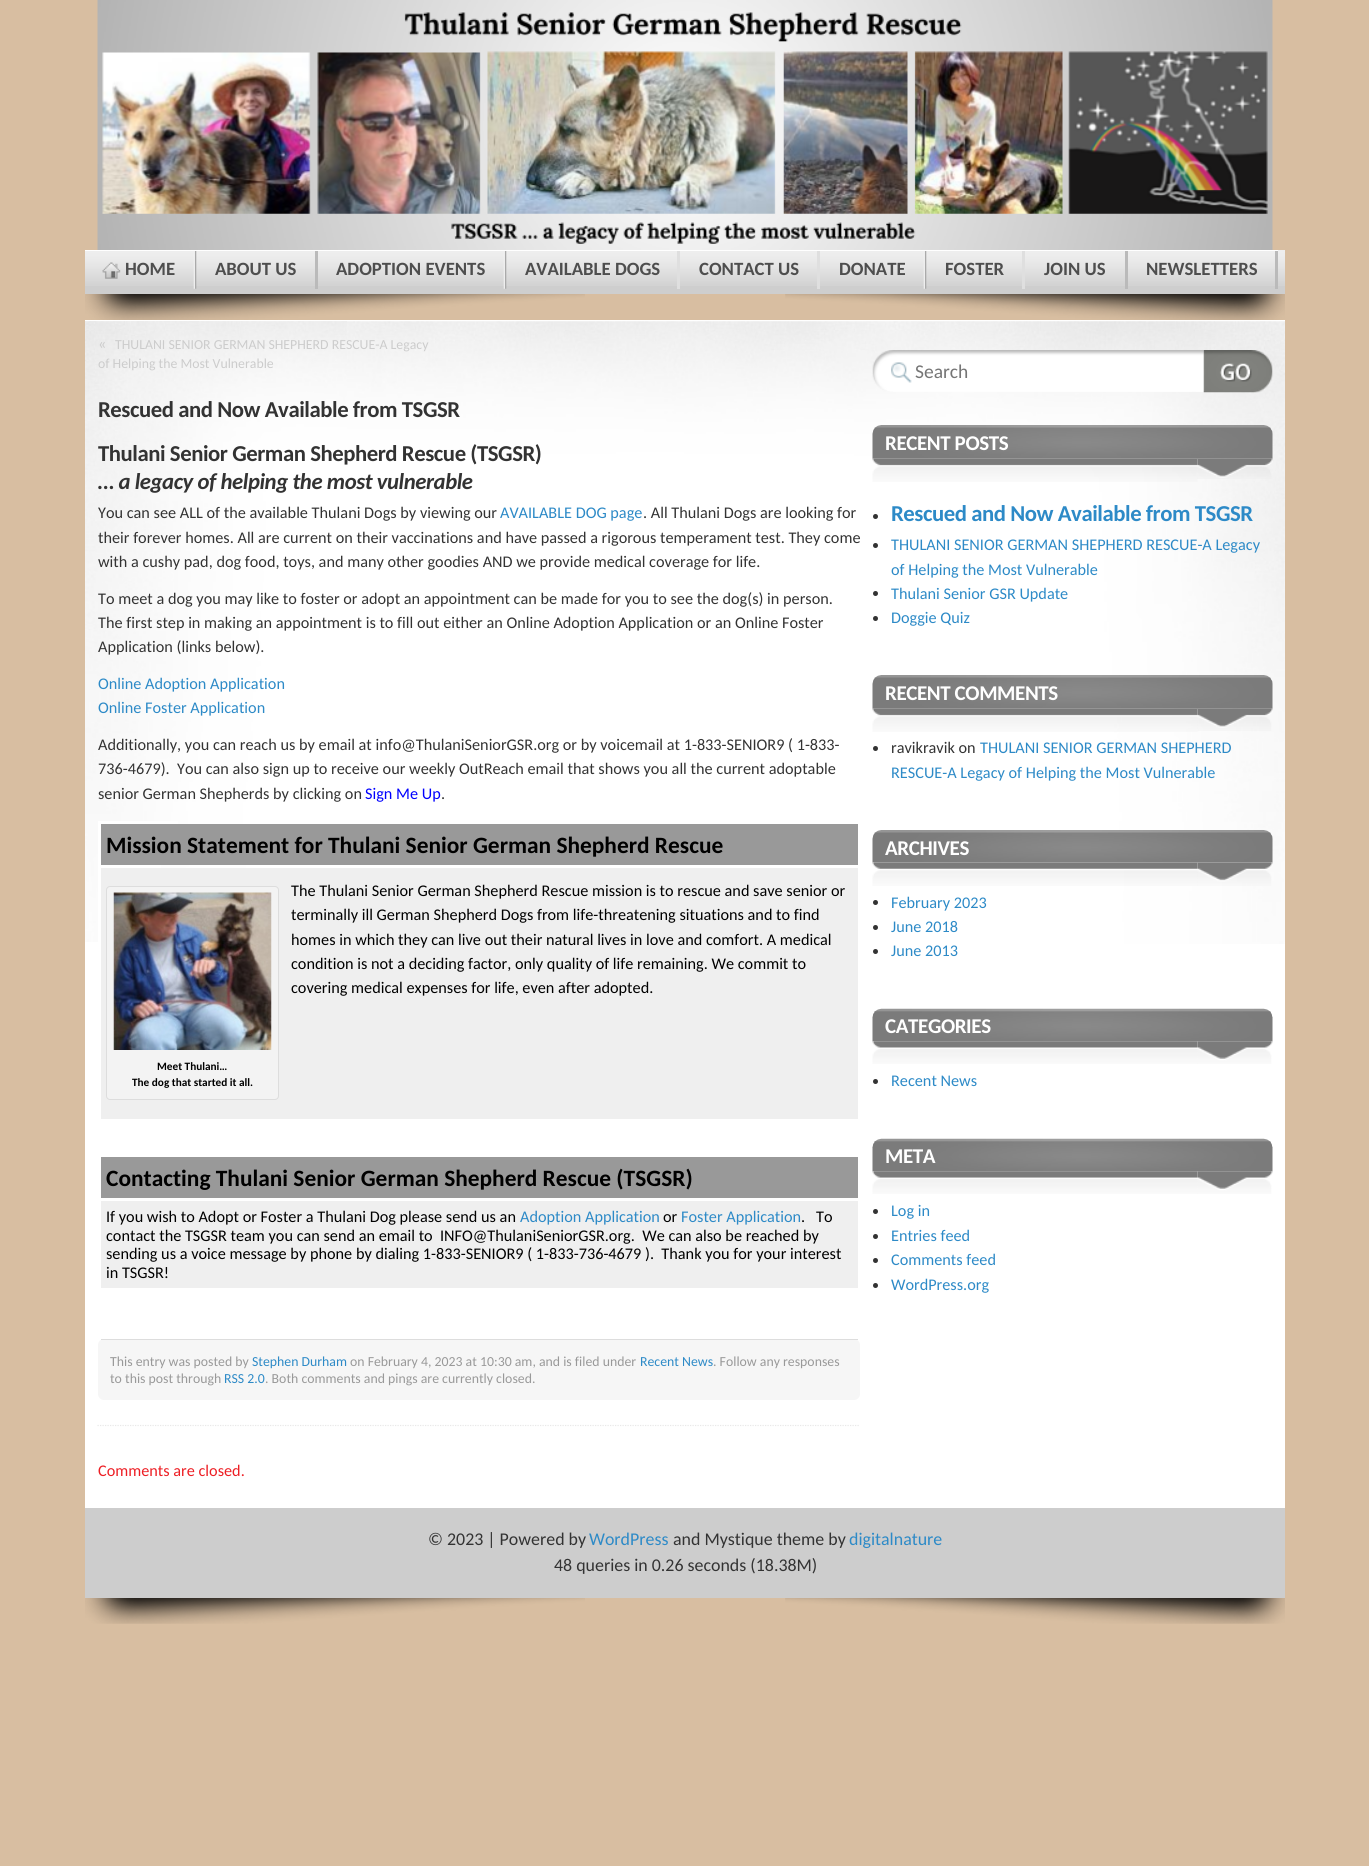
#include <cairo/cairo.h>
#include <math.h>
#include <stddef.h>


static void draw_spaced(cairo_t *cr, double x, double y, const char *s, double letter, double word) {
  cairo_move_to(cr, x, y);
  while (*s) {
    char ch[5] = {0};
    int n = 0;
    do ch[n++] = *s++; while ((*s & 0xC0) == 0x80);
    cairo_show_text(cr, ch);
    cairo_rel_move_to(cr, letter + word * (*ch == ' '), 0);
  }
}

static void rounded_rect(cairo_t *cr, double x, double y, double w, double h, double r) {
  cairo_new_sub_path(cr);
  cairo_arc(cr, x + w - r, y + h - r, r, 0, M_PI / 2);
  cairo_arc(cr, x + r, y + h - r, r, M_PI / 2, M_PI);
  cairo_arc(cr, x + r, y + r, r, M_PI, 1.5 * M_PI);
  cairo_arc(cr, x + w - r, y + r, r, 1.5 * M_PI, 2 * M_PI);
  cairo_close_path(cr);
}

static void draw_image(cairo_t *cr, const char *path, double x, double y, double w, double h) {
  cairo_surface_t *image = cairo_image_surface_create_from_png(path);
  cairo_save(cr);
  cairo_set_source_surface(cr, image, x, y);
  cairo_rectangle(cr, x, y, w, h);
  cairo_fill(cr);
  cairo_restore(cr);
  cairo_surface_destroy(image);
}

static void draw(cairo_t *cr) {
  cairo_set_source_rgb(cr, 216 / 255.0, 190 / 255.0, 161 / 255.0);
  cairo_paint(cr);
  draw_image(cr, "images/1.png", 97, 0, 1176, 250);
  draw_image(cr, "images/2.png", 85, 294, 500, 26);
  draw_image(cr, "images/3.png", 785, 294, 500, 26);
  cairo_set_source_rgb(cr, 206 / 255.0, 206 / 255.0, 206 / 255.0);
  cairo_rectangle(cr, 85, 286, 1200, 8);
  cairo_fill(cr);
  draw_image(cr, "images/4.png", 85, 250, 1200, 36);
  draw_image(cr, "images/5.png", 193, 251, 4, 38);
  cairo_set_source_rgb(cr, 1, 1, 1);
  cairo_rectangle(cr, 85, 250, 111, 1);
  cairo_fill(cr);
  draw_image(cr, "images/6.png", 102, 262, 19, 17);
  cairo_set_source_rgb(cr, 186 / 255.0, 186 / 255.0, 186 / 255.0);
  cairo_rectangle(cr, 315, 250, 3, 39);
  cairo_fill(cr);
  cairo_set_source_rgb(cr, 1, 1, 1);
  cairo_rectangle(cr, 196, 250, 310, 1);
  cairo_fill(cr);
  draw_image(cr, "images/5.png", 503, 251, 4, 38);
  cairo_set_source_rgb(cr, 223 / 255.0, 223 / 255.0, 223 / 255.0);
  cairo_rectangle(cr, 677, 250, 3, 39);
  cairo_fill(cr);
  cairo_set_source_rgb(cr, 1, 1, 1);
  cairo_rectangle(cr, 506, 250, 174, 1);
  cairo_fill(cr);
  cairo_set_source_rgb(cr, 223 / 255.0, 223 / 255.0, 223 / 255.0);
  cairo_rectangle(cr, 817, 250, 3, 39);
  cairo_fill(cr);
  cairo_set_source_rgb(cr, 1, 1, 1);
  cairo_rectangle(cr, 680, 250, 246, 1);
  cairo_fill(cr);
  draw_image(cr, "images/5.png", 923, 251, 4, 38);
  cairo_set_source_rgb(cr, 223 / 255.0, 223 / 255.0, 223 / 255.0);
  cairo_rectangle(cr, 1022, 250, 3, 39);
  cairo_fill(cr);
  cairo_set_source_rgb(cr, 1, 1, 1);
  cairo_rectangle(cr, 926, 250, 99, 1);
  cairo_fill(cr);
  cairo_set_source_rgb(cr, 186 / 255.0, 186 / 255.0, 186 / 255.0);
  cairo_rectangle(cr, 1125, 250, 3, 39);
  cairo_fill(cr);
  cairo_set_source_rgb(cr, 1, 1, 1);
  cairo_rectangle(cr, 1025, 250, 103, 1);
  cairo_fill(cr);
  cairo_set_source_rgb(cr, 186 / 255.0, 186 / 255.0, 186 / 255.0);
  cairo_rectangle(cr, 1275, 250, 3, 39);
  cairo_fill(cr);
  cairo_set_source_rgb(cr, 1, 1, 1);
  cairo_rectangle(cr, 1128, 250, 150, 1);
  cairo_fill(cr);
  cairo_rectangle(cr, 85, 320, 1200, 1188);
  cairo_fill(cr);
  draw_image(cr, "images/7.png", 85, 321, 1200, 623);
  draw_image(cr, "images/8.png", 85, 321, 262, 621);
  cairo_new_path(cr);
  cairo_move_to(cr, 97.5, 1425.5);
  cairo_line_to(cr, 860, 1425.5);
  cairo_set_source_rgb(cr, 232 / 255.0, 232 / 255.0, 232 / 255.0);
  cairo_set_line_width(cr, 1.2);
  cairo_set_dash(cr, (double[]){1.25, 1.25}, 2, 0);
  cairo_stroke(cr);
  cairo_set_source_rgb(cr, 153 / 255.0, 153 / 255.0, 153 / 255.0);
  cairo_rectangle(cr, 101, 824, 757, 41);
  cairo_fill(cr);
  cairo_set_source_rgb(cr, 1, 1, 1);
  cairo_rectangle(cr, 98, 821, 80, 3);
  cairo_fill(cr);
  cairo_rectangle(cr, 98, 865, 63, 3);
  cairo_fill(cr);
  cairo_rectangle(cr, 98, 865, 3, 77);
  cairo_fill(cr);
  cairo_rectangle(cr, 98, 821, 3, 47);
  cairo_fill(cr);
  cairo_set_source_rgb(cr, 239 / 255.0, 239 / 255.0, 239 / 255.0);
  cairo_rectangle(cr, 101, 868, 757, 251);
  cairo_fill(cr);
  cairo_set_source_rgb(cr, 243 / 255.0, 243 / 255.0, 243 / 255.0);
  rounded_rect(cr, 106.5, 886.5, 172, 213, 3.5);
  cairo_fill_preserve(cr);
  cairo_set_source_rgb(cr, 221 / 255.0, 221 / 255.0, 221 / 255.0);
  cairo_set_line_width(cr, 1);
  cairo_set_dash(cr, NULL, 0, 0);
  cairo_stroke(cr);
  draw_image(cr, "images/9.png", 113, 892, 159, 158);
  cairo_set_source_rgb(cr, 153 / 255.0, 153 / 255.0, 153 / 255.0);
  cairo_rectangle(cr, 101, 1157, 757, 41);
  cairo_fill(cr);
  cairo_set_source_rgb(cr, 239 / 255.0, 239 / 255.0, 239 / 255.0);
  cairo_rectangle(cr, 101, 1201, 757, 87);
  cairo_fill(cr);
  cairo_set_source_rgb(cr, 246 / 255.0, 246 / 255.0, 246 / 255.0);
  rounded_rect(cr, 98, 1339, 762, 61, 6);
  cairo_fill(cr);
  cairo_set_source_rgb(cr, 221 / 255.0, 221 / 255.0, 221 / 255.0);
  cairo_rectangle(cr, 101, 1339, 757, 1);
  cairo_fill(cr);
  draw_image(cr, "images/10.png", 872, 350, 332, 42);
  draw_image(cr, "images/11.png", 1203, 350, 70, 43);
  draw_image(cr, "images/12.png", 872, 425, 401, 34);
  draw_image(cr, "images/13.png", 872, 458, 326, 24);
  draw_image(cr, "images/14.png", 1197, 458, 76, 21);
  cairo_set_source_rgb(cr, 51 / 255.0, 51 / 255.0, 51 / 255.0);
  cairo_arc(cr, 875.5, 516.5, 2.5, 0, 2 * M_PI);
  cairo_fill(cr);
  cairo_arc(cr, 875.5, 545.5, 2.5, 0, 2 * M_PI);
  cairo_fill(cr);
  cairo_arc(cr, 875.5, 593.5, 2.5, 0, 2 * M_PI);
  cairo_fill(cr);
  cairo_arc(cr, 875.5, 618.5, 2.5, 0, 2 * M_PI);
  cairo_fill(cr);
  draw_image(cr, "images/15.png", 872, 675, 401, 34);
  draw_image(cr, "images/16.png", 872, 708, 326, 24);
  draw_image(cr, "images/17.png", 1197, 708, 76, 23);
  cairo_arc(cr, 875.5, 748.5, 2.5, 0, 2 * M_PI);
  cairo_fill(cr);
  draw_image(cr, "images/18.png", 872, 830, 401, 33);
  draw_image(cr, "images/19.png", 872, 862, 326, 24);
  draw_image(cr, "images/20.png", 1197, 862, 76, 24);
  cairo_arc(cr, 875.5, 902.5, 2.5, 0, 2 * M_PI);
  cairo_fill(cr);
  cairo_arc(cr, 875.5, 927.5, 2.5, 0, 2 * M_PI);
  cairo_fill(cr);
  cairo_arc(cr, 875.5, 951.5, 2.5, 0, 2 * M_PI);
  cairo_fill(cr);
  draw_image(cr, "images/21.png", 872, 1008, 401, 34);
  draw_image(cr, "images/22.png", 872, 1041, 326, 23);
  draw_image(cr, "images/23.png", 1197, 1041, 76, 23);
  cairo_arc(cr, 875.5, 1081.5, 2.5, 0, 2 * M_PI);
  cairo_fill(cr);
  draw_image(cr, "images/24.png", 872, 1138, 401, 34);
  draw_image(cr, "images/25.png", 872, 1171, 326, 23);
  draw_image(cr, "images/26.png", 1197, 1171, 76, 23);
  cairo_arc(cr, 875.5, 1211.5, 2.5, 0, 2 * M_PI);
  cairo_fill(cr);
  cairo_arc(cr, 875.5, 1236.5, 2.5, 0, 2 * M_PI);
  cairo_fill(cr);
  cairo_arc(cr, 875.5, 1260.5, 2.5, 0, 2 * M_PI);
  cairo_fill(cr);
  cairo_arc(cr, 875.5, 1285.5, 2.5, 0, 2 * M_PI);
  cairo_fill(cr);
  draw_image(cr, "images/27.png", 85, 1598, 500, 26);
  draw_image(cr, "images/28.png", 785, 1598, 500, 26);
  cairo_set_source_rgb(cr, 205 / 255.0, 205 / 255.0, 205 / 255.0);
  cairo_rectangle(cr, 85, 1508, 1200, 90);
  cairo_fill(cr);
  cairo_select_font_face(cr, "Carlito", CAIRO_FONT_SLANT_NORMAL, CAIRO_FONT_WEIGHT_BOLD);
  cairo_set_font_size(cr, 18.75);
  cairo_set_source_rgb(cr, 78 / 255.0, 78 / 255.0, 78 / 255.0);
  cairo_move_to(cr, 125, 275);
  cairo_show_text(cr, "HOME");
  cairo_move_to(cr, 215, 275);
  cairo_show_text(cr, "ABOUT US");
  cairo_move_to(cr, 336, 275);
  cairo_show_text(cr, "ADOPTION EVENTS");
  cairo_move_to(cr, 525, 275);
  cairo_show_text(cr, "AVAILABLE DOGS");
  cairo_move_to(cr, 699, 275);
  cairo_show_text(cr, "CONTACT US");
  cairo_move_to(cr, 839, 275);
  cairo_show_text(cr, "DONATE");
  cairo_move_to(cr, 945, 275);
  cairo_show_text(cr, "FOSTER");
  cairo_move_to(cr, 1044, 275);
  cairo_show_text(cr, "JOIN US");
  cairo_move_to(cr, 1146, 275);
  cairo_show_text(cr, "NEWSLETTERS");
  cairo_select_font_face(cr, "Carlito", CAIRO_FONT_SLANT_NORMAL, CAIRO_FONT_WEIGHT_NORMAL);
  cairo_set_font_size(cr, 16.25);
  cairo_set_source_rgb(cr, 204 / 255.0, 204 / 255.0, 204 / 255.0);
  cairo_move_to(cr, 98, 349);
  cairo_show_text(cr, "«");
  cairo_set_font_size(cr, 13.8);
  cairo_move_to(cr, 115, 349);
  cairo_show_text(cr, "THULANI SENIOR GERMAN SHEPHERD RESCUE-A Legacy");
  cairo_move_to(cr, 98, 368);
  cairo_show_text(cr, "of Helping the Most Vulnerable");
  cairo_select_font_face(cr, "Carlito", CAIRO_FONT_SLANT_NORMAL, CAIRO_FONT_WEIGHT_BOLD);
  cairo_set_font_size(cr, 22.75);
  cairo_set_source_rgb(cr, 51 / 255.0, 51 / 255.0, 51 / 255.0);
  draw_spaced(cr, 98, 417, "Rescued and Now Available from TSGSR", -0.45, 0);
  draw_spaced(cr, 98, 461, "Thulani Senior German Shepherd Rescue (TSGSR)", -0.45, 0);
  cairo_select_font_face(cr, "Carlito", CAIRO_FONT_SLANT_ITALIC, CAIRO_FONT_WEIGHT_BOLD);
  draw_spaced(cr, 98, 489, "… a legacy of helping the most vulnerable", -0.45, 0);
  cairo_select_font_face(cr, "Carlito", CAIRO_FONT_SLANT_NORMAL, CAIRO_FONT_WEIGHT_NORMAL);
  cairo_set_font_size(cr, 16.25);
  cairo_move_to(cr, 98, 518);
  cairo_show_text(cr, "You can see ALL of the available Thulani Dogs by viewing our");
  cairo_set_source_rgb(cr, 45 / 255.0, 138 / 255.0, 199 / 255.0);
  cairo_move_to(cr, 500, 518);
  cairo_show_text(cr, "AVAILABLE DOG page");
  cairo_set_source_rgb(cr, 51 / 255.0, 51 / 255.0, 51 / 255.0);
  cairo_move_to(cr, 643, 518);
  cairo_show_text(cr, ". All Thulani Dogs are looking for");
  cairo_move_to(cr, 98, 543);
  cairo_show_text(cr, "their forever homes. All are current on their vaccinations and have passed a rigorous temperament test. They come");
  cairo_move_to(cr, 98, 567);
  cairo_show_text(cr, "with a cushy pad, dog food, toys, and many other goodies AND we provide medical coverage for life.");
  cairo_move_to(cr, 98, 604);
  cairo_show_text(cr, "To meet a dog you may like to foster or adopt an appointment can be made for you to see the dog(s) in person.");
  cairo_move_to(cr, 98, 628);
  cairo_show_text(cr, "The first step in making an appointment is to fill out either an Online Adoption Application or an Online Foster");
  cairo_move_to(cr, 98, 652);
  cairo_show_text(cr, "Application (links below).");
  cairo_set_source_rgb(cr, 45 / 255.0, 138 / 255.0, 199 / 255.0);
  cairo_move_to(cr, 98, 689);
  cairo_show_text(cr, "Online Adoption Application");
  cairo_move_to(cr, 98, 713);
  cairo_show_text(cr, "Online Foster Application");
  cairo_set_source_rgb(cr, 51 / 255.0, 51 / 255.0, 51 / 255.0);
  cairo_move_to(cr, 98, 750);
  cairo_show_text(cr, "Additionally, you can reach us by email at info@ThulaniSeniorGSR.org or by voicemail at 1-833-SENIOR9 ( 1-833-");
  cairo_move_to(cr, 98, 774);
  cairo_show_text(cr, "736-4679).  You can also sign up to receive our weekly OutReach email that shows you all the current adoptable");
  cairo_move_to(cr, 98, 799);
  cairo_show_text(cr, "senior German Shepherds by clicking on");
  cairo_set_source_rgb(cr, 0, 0, 1);
  cairo_move_to(cr, 365, 799);
  cairo_show_text(cr, "Sign Me Up");
  cairo_set_source_rgb(cr, 51 / 255.0, 51 / 255.0, 51 / 255.0);
  cairo_move_to(cr, 441, 799);
  cairo_show_text(cr, ".");
  cairo_select_font_face(cr, "Carlito", CAIRO_FONT_SLANT_NORMAL, CAIRO_FONT_WEIGHT_BOLD);
  cairo_set_font_size(cr, 23.4);
  cairo_set_source_rgb(cr, 0, 0, 0);
  cairo_move_to(cr, 106, 853);
  cairo_show_text(cr, "Mission Statement for Thulani Senior German Shepherd Rescue");
  cairo_select_font_face(cr, "Carlito", CAIRO_FONT_SLANT_NORMAL, CAIRO_FONT_WEIGHT_NORMAL);
  cairo_set_font_size(cr, 16.25);
  cairo_move_to(cr, 291, 896);
  cairo_show_text(cr, "The Thulani Senior German Shepherd Rescue mission is to rescue and save senior or");
  cairo_move_to(cr, 291, 920);
  cairo_show_text(cr, "terminally ill German Shepherd Dogs from life-threatening situations and to find");
  cairo_move_to(cr, 291, 945);
  cairo_show_text(cr, "homes in which they can live out their natural lives in love and comfort. A medical");
  cairo_move_to(cr, 291, 969);
  cairo_show_text(cr, "condition is not a deciding factor, only quality of life remaining. We commit to");
  cairo_move_to(cr, 291, 993);
  cairo_show_text(cr, "covering medical expenses for life, even after adopted.");
  cairo_select_font_face(cr, "Carlito", CAIRO_FONT_SLANT_NORMAL, CAIRO_FONT_WEIGHT_BOLD);
  cairo_set_font_size(cr, 11.25);
  cairo_move_to(cr, 157, 1070);
  cairo_show_text(cr, "Meet Thulani…");
  cairo_move_to(cr, 132, 1086);
  cairo_show_text(cr, "The dog that started it all.");
  cairo_set_font_size(cr, 23.4);
  cairo_move_to(cr, 106, 1186);
  cairo_show_text(cr, "Contacting Thulani Senior German Shepherd Rescue (TSGSR)");
  cairo_select_font_face(cr, "Carlito", CAIRO_FONT_SLANT_NORMAL, CAIRO_FONT_WEIGHT_NORMAL);
  cairo_set_font_size(cr, 16.25);
  cairo_move_to(cr, 106, 1222);
  cairo_show_text(cr, "If you wish to Adopt or Foster a Thulani Dog please send us an");
  cairo_set_source_rgb(cr, 45 / 255.0, 138 / 255.0, 199 / 255.0);
  cairo_move_to(cr, 520, 1222);
  cairo_show_text(cr, "Adoption Application");
  cairo_set_source_rgb(cr, 0, 0, 0);
  cairo_move_to(cr, 663, 1222);
  cairo_show_text(cr, "or");
  cairo_set_source_rgb(cr, 45 / 255.0, 138 / 255.0, 199 / 255.0);
  cairo_move_to(cr, 681, 1222);
  cairo_show_text(cr, "Foster Application");
  cairo_set_source_rgb(cr, 0, 0, 0);
  cairo_move_to(cr, 801, 1222);
  cairo_show_text(cr, ".   To");
  cairo_move_to(cr, 106, 1241);
  cairo_show_text(cr, "contact the TSGSR team you can send an email to  INFO@ThulaniSeniorGSR.org.  We can also be reached by");
  cairo_move_to(cr, 106, 1259);
  cairo_show_text(cr, "sending us a voice message by phone by dialing 1-833-SENIOR9 ( 1-833-736-4679 ).  Thank you for your interest");
  cairo_move_to(cr, 106, 1278);
  cairo_show_text(cr, "in TSGSR!");
  cairo_set_font_size(cr, 13.8);
  cairo_set_source_rgb(cr, 153 / 255.0, 153 / 255.0, 153 / 255.0);
  cairo_move_to(cr, 110, 1366);
  cairo_show_text(cr, "This entry was posted by");
  cairo_set_source_rgb(cr, 45 / 255.0, 138 / 255.0, 199 / 255.0);
  cairo_move_to(cr, 252, 1366);
  cairo_show_text(cr, "Stephen Durham");
  cairo_set_source_rgb(cr, 153 / 255.0, 153 / 255.0, 153 / 255.0);
  cairo_move_to(cr, 350, 1366);
  cairo_show_text(cr, "on February 4, 2023 at 10:30 am, and is filed under");
  cairo_set_source_rgb(cr, 45 / 255.0, 138 / 255.0, 199 / 255.0);
  cairo_move_to(cr, 640, 1366);
  cairo_show_text(cr, "Recent News");
  cairo_set_source_rgb(cr, 153 / 255.0, 153 / 255.0, 153 / 255.0);
  cairo_move_to(cr, 713, 1366);
  cairo_show_text(cr, ". Follow any responses");
  cairo_move_to(cr, 110, 1383);
  cairo_show_text(cr, "to this post through");
  cairo_set_source_rgb(cr, 45 / 255.0, 138 / 255.0, 199 / 255.0);
  cairo_move_to(cr, 224, 1383);
  cairo_show_text(cr, "RSS 2.0");
  cairo_set_source_rgb(cr, 153 / 255.0, 153 / 255.0, 153 / 255.0);
  cairo_move_to(cr, 265, 1383);
  cairo_show_text(cr, ". Both comments and pings are currently closed.");
  cairo_set_font_size(cr, 16.25);
  cairo_set_source_rgb(cr, 237 / 255.0, 30 / 255.0, 36 / 255.0);
  cairo_move_to(cr, 98, 1476);
  cairo_show_text(cr, "Comments are closed.");
  cairo_set_font_size(cr, 19.5);
  cairo_set_source_rgb(cr, 117 / 255.0, 117 / 255.0, 117 / 255.0);
  cairo_move_to(cr, 915, 378);
  cairo_show_text(cr, "Search");
  cairo_select_font_face(cr, "Carlito", CAIRO_FONT_SLANT_NORMAL, CAIRO_FONT_WEIGHT_BOLD);
  cairo_set_font_size(cr, 21);
  cairo_set_source_rgb(cr, 1, 1, 1);
  draw_spaced(cr, 885, 450, "RECENT POSTS", -0.4, 0);
  cairo_set_font_size(cr, 22.75);
  cairo_set_source_rgb(cr, 45 / 255.0, 138 / 255.0, 199 / 255.0);
  draw_spaced(cr, 891, 521, "Rescued and Now Available from TSGSR", -0.45, 0);
  cairo_select_font_face(cr, "Carlito", CAIRO_FONT_SLANT_NORMAL, CAIRO_FONT_WEIGHT_NORMAL);
  cairo_set_font_size(cr, 16.25);
  cairo_move_to(cr, 891, 550);
  cairo_show_text(cr, "THULANI SENIOR GERMAN SHEPHERD RESCUE-A Legacy");
  cairo_move_to(cr, 891, 575);
  cairo_show_text(cr, "of Helping the Most Vulnerable");
  cairo_move_to(cr, 891, 599);
  cairo_show_text(cr, "Thulani Senior GSR Update");
  cairo_move_to(cr, 891, 623);
  cairo_show_text(cr, "Doggie Quiz");
  cairo_select_font_face(cr, "Carlito", CAIRO_FONT_SLANT_NORMAL, CAIRO_FONT_WEIGHT_BOLD);
  cairo_set_font_size(cr, 21);
  cairo_set_source_rgb(cr, 1, 1, 1);
  draw_spaced(cr, 885, 700, "RECENT COMMENTS", -0.4, 0);
  cairo_select_font_face(cr, "Carlito", CAIRO_FONT_SLANT_NORMAL, CAIRO_FONT_WEIGHT_NORMAL);
  cairo_set_font_size(cr, 16.25);
  cairo_set_source_rgb(cr, 51 / 255.0, 51 / 255.0, 51 / 255.0);
  cairo_move_to(cr, 891, 753);
  cairo_show_text(cr, "ravikravik on");
  cairo_set_source_rgb(cr, 45 / 255.0, 138 / 255.0, 199 / 255.0);
  cairo_move_to(cr, 980, 753);
  cairo_show_text(cr, "THULANI SENIOR GERMAN SHEPHERD");
  cairo_move_to(cr, 891, 778);
  cairo_show_text(cr, "RESCUE-A Legacy of Helping the Most Vulnerable");
  cairo_select_font_face(cr, "Carlito", CAIRO_FONT_SLANT_NORMAL, CAIRO_FONT_WEIGHT_BOLD);
  cairo_set_font_size(cr, 21);
  cairo_set_source_rgb(cr, 1, 1, 1);
  draw_spaced(cr, 885, 855, "ARCHIVES", -0.4, 0);
  cairo_select_font_face(cr, "Carlito", CAIRO_FONT_SLANT_NORMAL, CAIRO_FONT_WEIGHT_NORMAL);
  cairo_set_font_size(cr, 16.25);
  cairo_set_source_rgb(cr, 45 / 255.0, 138 / 255.0, 199 / 255.0);
  cairo_move_to(cr, 891, 908);
  cairo_show_text(cr, "February 2023");
  cairo_move_to(cr, 891, 932);
  cairo_show_text(cr, "June 2018");
  cairo_move_to(cr, 891, 956);
  cairo_show_text(cr, "June 2013");
  cairo_select_font_face(cr, "Carlito", CAIRO_FONT_SLANT_NORMAL, CAIRO_FONT_WEIGHT_BOLD);
  cairo_set_font_size(cr, 21);
  cairo_set_source_rgb(cr, 1, 1, 1);
  draw_spaced(cr, 885, 1033, "CATEGORIES", -0.4, 0);
  cairo_select_font_face(cr, "Carlito", CAIRO_FONT_SLANT_NORMAL, CAIRO_FONT_WEIGHT_NORMAL);
  cairo_set_font_size(cr, 16.25);
  cairo_set_source_rgb(cr, 45 / 255.0, 138 / 255.0, 199 / 255.0);
  cairo_move_to(cr, 891, 1086);
  cairo_show_text(cr, "Recent News");
  cairo_select_font_face(cr, "Carlito", CAIRO_FONT_SLANT_NORMAL, CAIRO_FONT_WEIGHT_BOLD);
  cairo_set_font_size(cr, 21);
  cairo_set_source_rgb(cr, 1, 1, 1);
  draw_spaced(cr, 885, 1163, "META", -0.4, 0);
  cairo_select_font_face(cr, "Carlito", CAIRO_FONT_SLANT_NORMAL, CAIRO_FONT_WEIGHT_NORMAL);
  cairo_set_font_size(cr, 16.25);
  cairo_set_source_rgb(cr, 45 / 255.0, 138 / 255.0, 199 / 255.0);
  cairo_move_to(cr, 891, 1216);
  cairo_show_text(cr, "Log in");
  cairo_move_to(cr, 891, 1241);
  cairo_show_text(cr, "Entries feed");
  cairo_move_to(cr, 891, 1265);
  cairo_show_text(cr, "Comments feed");
  cairo_move_to(cr, 891, 1290);
  cairo_show_text(cr, "WordPress.org");
  cairo_set_font_size(cr, 17.9);
  cairo_set_source_rgb(cr, 51 / 255.0, 51 / 255.0, 51 / 255.0);
  cairo_move_to(cr, 428, 1545);
  cairo_show_text(cr, "© 2023 | Powered by");
  cairo_set_source_rgb(cr, 45 / 255.0, 138 / 255.0, 199 / 255.0);
  cairo_move_to(cr, 589, 1545);
  cairo_show_text(cr, "WordPress");
  cairo_set_source_rgb(cr, 51 / 255.0, 51 / 255.0, 51 / 255.0);
  cairo_move_to(cr, 673, 1545);
  cairo_show_text(cr, "and Mystique theme by");
  cairo_set_source_rgb(cr, 45 / 255.0, 138 / 255.0, 199 / 255.0);
  cairo_move_to(cr, 849, 1545);
  cairo_show_text(cr, "digitalnature");
  cairo_set_source_rgb(cr, 51 / 255.0, 51 / 255.0, 51 / 255.0);
  cairo_move_to(cr, 554, 1571);
  cairo_show_text(cr, "48 queries in 0.26 seconds (18.38M)");
}

int main(void) {
  cairo_surface_t *surface = cairo_image_surface_create(CAIRO_FORMAT_RGB24, 1369, 1866);
  cairo_t *cr = cairo_create(surface);
  cairo_font_options_t *options = cairo_font_options_create();
  cairo_font_options_set_hint_metrics(options, CAIRO_HINT_METRICS_OFF);
  cairo_font_options_set_hint_style(options, CAIRO_HINT_STYLE_NONE);
  cairo_set_font_options(cr, options);
  cairo_set_miter_limit(cr, 4);
  draw(cr);
  cairo_surface_write_to_png(surface, "out.png");
  cairo_font_options_destroy(options);
  cairo_destroy(cr);
  cairo_surface_destroy(surface);
  return 0;
}
